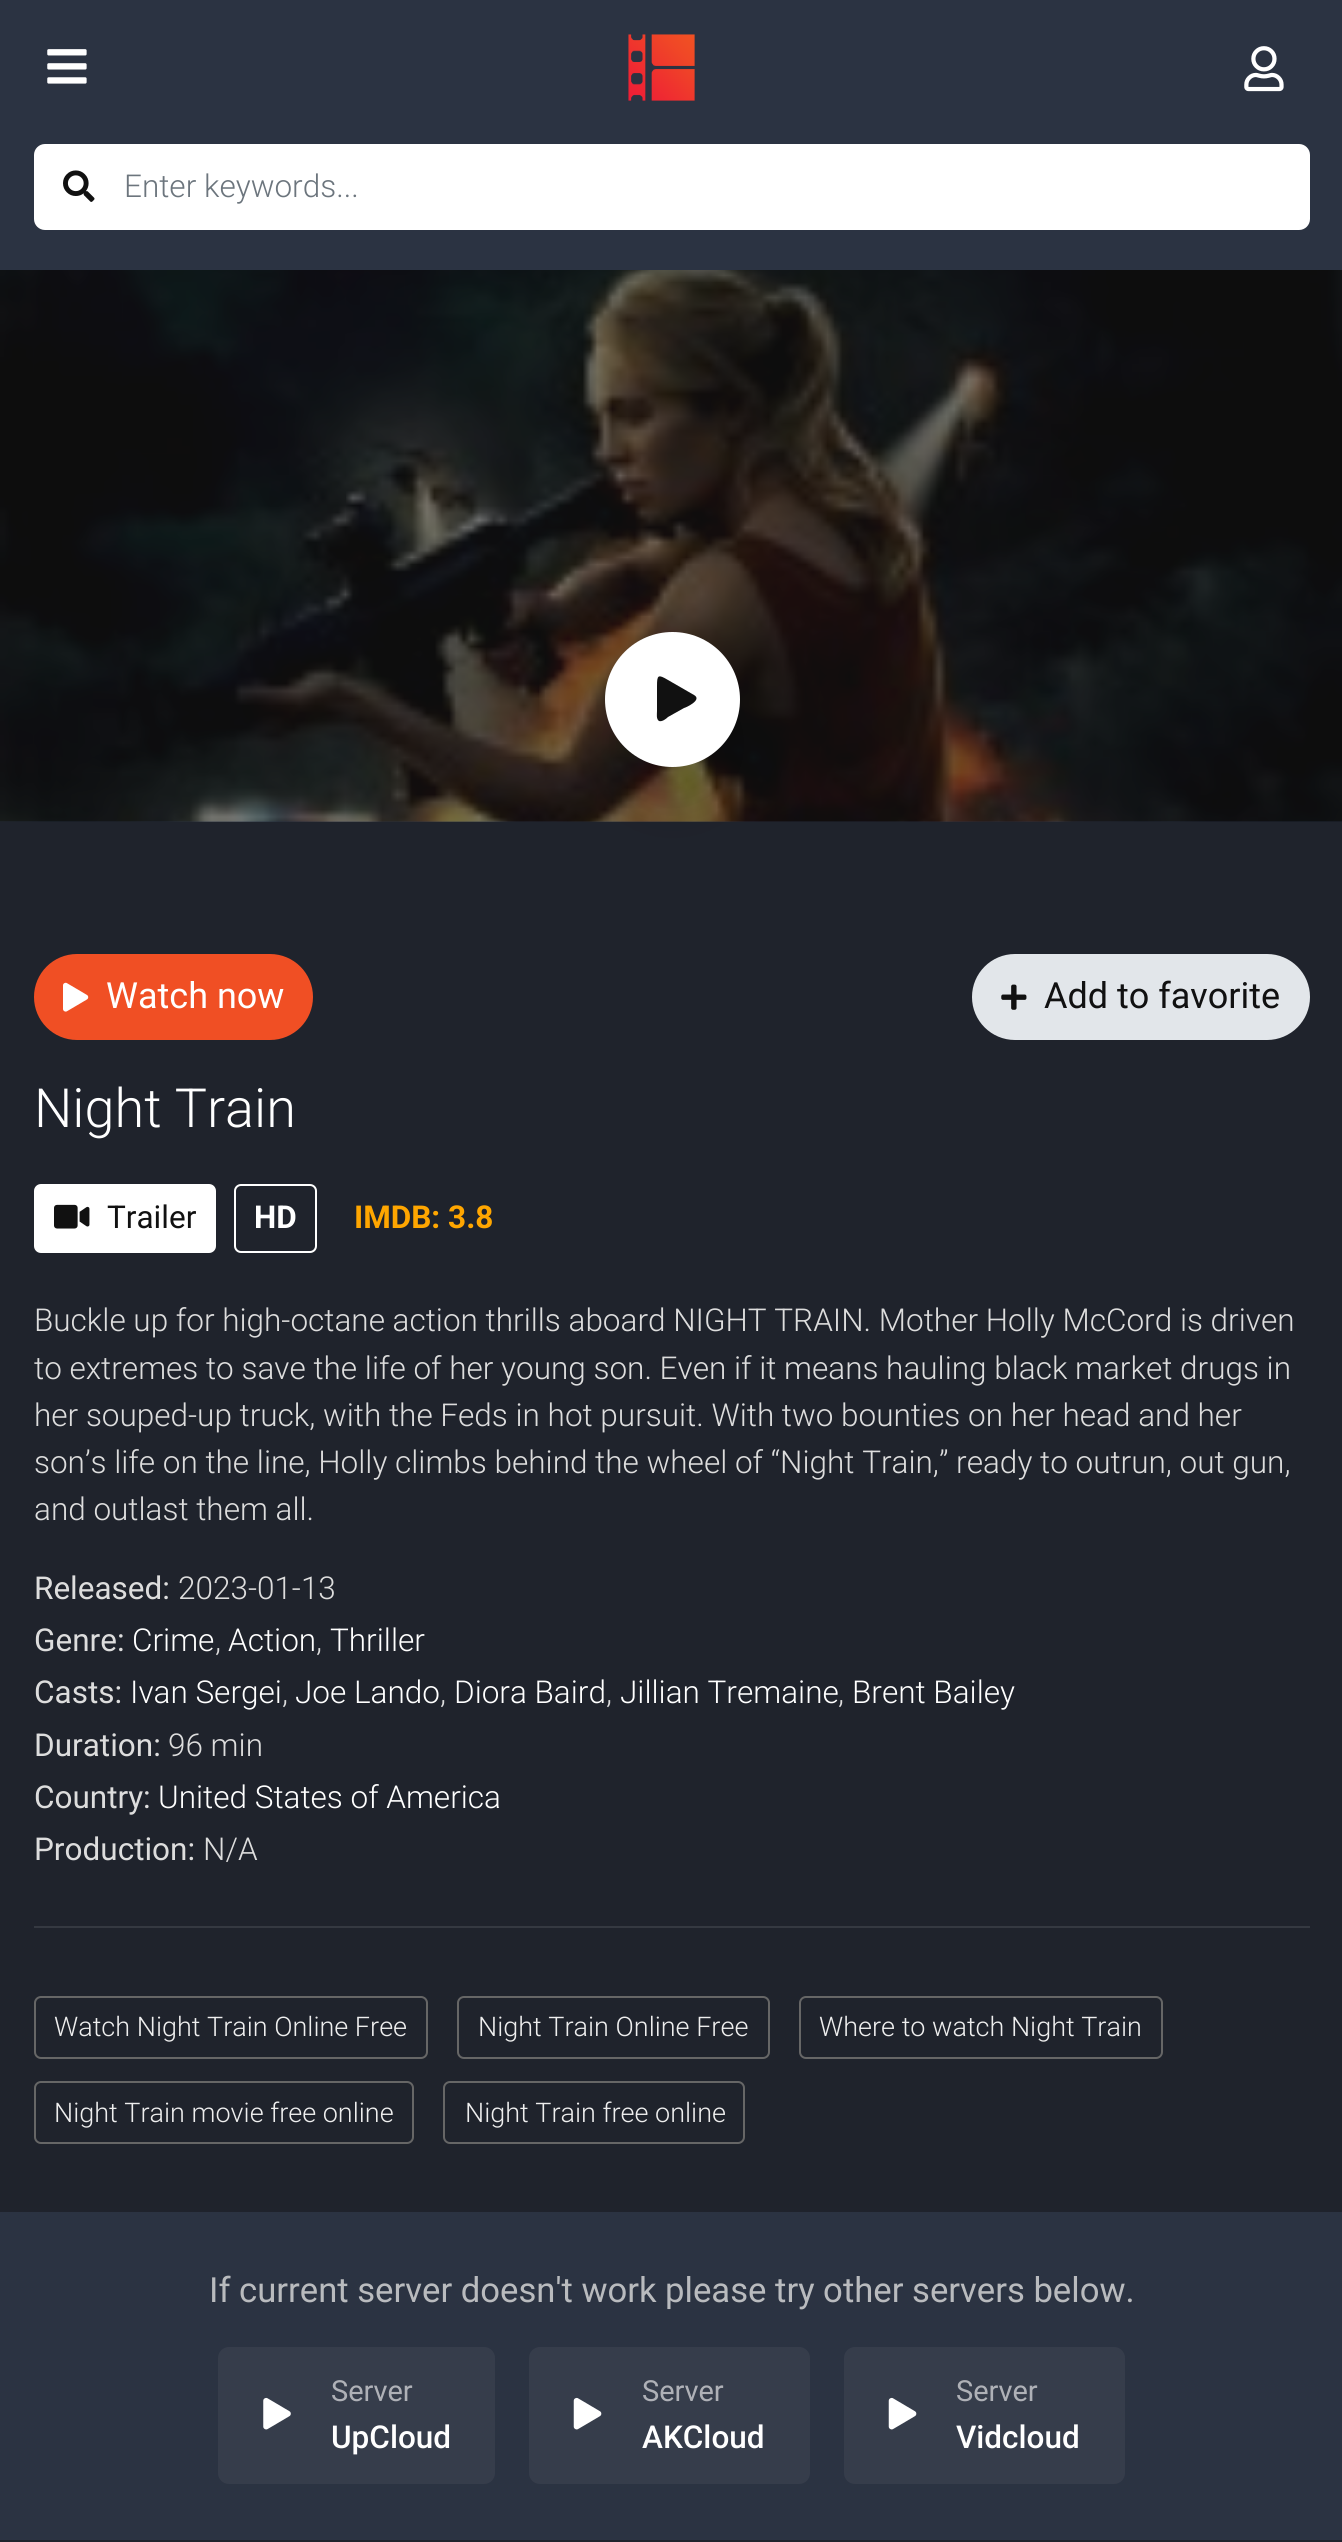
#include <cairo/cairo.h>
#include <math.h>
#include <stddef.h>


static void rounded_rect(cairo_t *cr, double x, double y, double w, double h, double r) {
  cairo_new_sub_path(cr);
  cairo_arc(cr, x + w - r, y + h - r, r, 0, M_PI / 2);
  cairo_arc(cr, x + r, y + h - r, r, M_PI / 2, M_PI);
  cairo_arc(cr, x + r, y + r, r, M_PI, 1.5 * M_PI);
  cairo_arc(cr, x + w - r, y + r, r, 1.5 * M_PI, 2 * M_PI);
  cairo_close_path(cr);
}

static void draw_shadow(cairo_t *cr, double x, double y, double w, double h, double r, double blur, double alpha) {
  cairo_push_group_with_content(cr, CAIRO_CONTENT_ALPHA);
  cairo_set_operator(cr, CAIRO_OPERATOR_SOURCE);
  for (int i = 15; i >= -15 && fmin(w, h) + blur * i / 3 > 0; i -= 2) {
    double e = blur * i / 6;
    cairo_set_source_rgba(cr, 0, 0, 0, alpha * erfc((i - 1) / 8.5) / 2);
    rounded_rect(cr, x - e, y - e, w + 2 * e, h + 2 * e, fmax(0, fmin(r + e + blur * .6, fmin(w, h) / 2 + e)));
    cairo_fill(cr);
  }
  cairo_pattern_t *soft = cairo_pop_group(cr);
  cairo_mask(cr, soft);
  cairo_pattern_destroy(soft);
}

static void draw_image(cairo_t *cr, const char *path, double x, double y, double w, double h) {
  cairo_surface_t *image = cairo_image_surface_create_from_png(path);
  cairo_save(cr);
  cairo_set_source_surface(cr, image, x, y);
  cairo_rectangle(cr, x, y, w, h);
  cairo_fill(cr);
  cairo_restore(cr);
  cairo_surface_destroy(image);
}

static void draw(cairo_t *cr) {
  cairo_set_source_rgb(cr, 31 / 255.0, 35 / 255.0, 44 / 255.0);
  cairo_paint(cr);
  cairo_set_source_rgb(cr, 43 / 255.0, 51 / 255.0, 66 / 255.0);
  cairo_rectangle(cr, 0, 0, 1342, 270);
  cairo_fill(cr);
  draw_image(cr, "images/1.png", 47, 49, 40, 35);
  draw_image(cr, "images/2.png", 628, 34, 67, 67);
  draw_image(cr, "images/3.png", 1244, 46, 40, 46);
  cairo_set_source_rgb(cr, 1, 1, 1);
  rounded_rect(cr, 34, 144, 1276, 86, 11);
  cairo_fill(cr);
  draw_image(cr, "images/4.png", 63, 170, 32, 32);
  draw_image(cr, "images/5.png", 0, 270, 1342, 552);
  cairo_set_source_rgb(cr, 0, 0, 0);
  draw_shadow(cr, 605, 677, 135, 135, 67.5, 22.5, 0.1);
  cairo_set_source_rgb(cr, 1, 1, 1);
  cairo_arc(cr, 672.5, 699.5, 67.5, 0, 2 * M_PI);
  cairo_fill(cr);
  cairo_set_source_rgb(cr, 17 / 255.0, 17 / 255.0, 17 / 255.0);
  cairo_new_path(cr);
  cairo_move_to(cr, 694, 695);
  cairo_curve_to(cr, 703, 700, 685, 708, 684, 708);
  cairo_line_to(cr, 668, 717);
  cairo_curve_to(cr, 666, 719, 662, 722, 659, 721);
  cairo_curve_to(cr, 656, 719, 657, 714, 657, 711);
  cairo_line_to(cr, 657, 686);
  cairo_curve_to(cr, 657, 675, 658, 674, 668, 680);
  cairo_close_path(cr);
  cairo_fill(cr);
  cairo_set_source_rgb(cr, 53 / 255.0, 57 / 255.0, 65 / 255.0);
  cairo_rectangle(cr, 34, 1926, 1276, 2);
  cairo_fill(cr);
  cairo_set_source_rgb(cr, 240 / 255.0, 79 / 255.0, 36 / 255.0);
  rounded_rect(cr, 35, 955, 277, 84, 42);
  cairo_fill_preserve(cr);
  cairo_stroke(cr);
  draw_image(cr, "images/6.png", 63, 982, 26, 30);
  cairo_set_source_rgb(cr, 226 / 255.0, 230 / 255.0, 234 / 255.0);
  rounded_rect(cr, 973, 955, 336, 84, 42);
  cairo_fill_preserve(cr);
  cairo_stroke(cr);
  draw_image(cr, "images/7.png", 1001, 984, 26, 26);
  cairo_set_source_rgb(cr, 1, 1, 1);
  rounded_rect(cr, 34, 1184, 182, 69, 7);
  cairo_fill(cr);
  draw_image(cr, "images/8.png", 54, 1204, 36, 25);
  rounded_rect(cr, 235, 1185, 81, 67, 6);
  cairo_stroke(cr);
  rounded_rect(cr, 35, 1997, 392, 61, 6);
  cairo_set_source_rgb(cr, 102 / 255.0, 102 / 255.0, 102 / 255.0);
  cairo_stroke(cr);
  rounded_rect(cr, 458, 1997, 311, 61, 6);
  cairo_stroke(cr);
  rounded_rect(cr, 800, 1997, 362, 61, 6);
  cairo_stroke(cr);
  rounded_rect(cr, 35, 2082, 378, 61, 6);
  cairo_stroke(cr);
  rounded_rect(cr, 444, 2082, 300, 61, 6);
  cairo_stroke(cr);
  cairo_set_source_rgb(cr, 43 / 255.0, 51 / 255.0, 66 / 255.0);
  cairo_rectangle(cr, 0, 2212, 1342, 328);
  cairo_fill(cr);
  cairo_set_source_rgb(cr, 54 / 255.0, 61 / 255.0, 75 / 255.0);
  rounded_rect(cr, 218, 2347, 277, 137, 11);
  cairo_fill(cr);
  draw_image(cr, "images/9.png", 263, 2397, 28, 33);
  rounded_rect(cr, 529, 2347, 281, 137, 11);
  cairo_fill(cr);
  draw_image(cr, "images/10.png", 573, 2397, 29, 33);
  rounded_rect(cr, 844, 2347, 281, 137, 11);
  cairo_fill(cr);
  draw_image(cr, "images/10.png", 888, 2397, 29, 33);
  cairo_select_font_face(cr, "Roboto Light", CAIRO_FONT_SLANT_NORMAL, CAIRO_FONT_WEIGHT_NORMAL);
  cairo_set_font_size(cr, 31.5);
  cairo_set_source_rgb(cr, 108 / 255.0, 117 / 255.0, 125 / 255.0);
  cairo_move_to(cr, 124, 197);
  cairo_show_text(cr, "Enter keywords...");
  cairo_select_font_face(cr, "Roboto", CAIRO_FONT_SLANT_NORMAL, CAIRO_FONT_WEIGHT_NORMAL);
  cairo_set_font_size(cr, 36);
  cairo_set_source_rgb(cr, 1, 1, 1);
  cairo_move_to(cr, 106, 1008);
  cairo_show_text(cr, "Watch now");
  cairo_set_source_rgb(cr, 17 / 255.0, 17 / 255.0, 17 / 255.0);
  cairo_move_to(cr, 1044, 1008);
  cairo_show_text(cr, "Add to favorite");
  cairo_select_font_face(cr, "Roboto Light", CAIRO_FONT_SLANT_NORMAL, CAIRO_FONT_WEIGHT_NORMAL);
  cairo_set_font_size(cr, 54);
  cairo_set_source_rgb(cr, 1, 1, 1);
  cairo_move_to(cr, 34, 1127);
  cairo_show_text(cr, "Night Train");
  cairo_select_font_face(cr, "Roboto", CAIRO_FONT_SLANT_NORMAL, CAIRO_FONT_WEIGHT_NORMAL);
  cairo_set_font_size(cr, 31.5);
  cairo_set_source_rgb(cr, 17 / 255.0, 17 / 255.0, 17 / 255.0);
  cairo_move_to(cr, 107, 1228);
  cairo_show_text(cr, "Trailer");
  cairo_select_font_face(cr, "Roboto", CAIRO_FONT_SLANT_NORMAL, CAIRO_FONT_WEIGHT_BOLD);
  cairo_set_source_rgb(cr, 1, 1, 1);
  cairo_move_to(cr, 254, 1228);
  cairo_show_text(cr, "HD");
  cairo_set_source_rgb(cr, 1, 166 / 255.0, 0);
  cairo_move_to(cr, 354, 1228);
  cairo_show_text(cr, "IMDB: 3.8");
  cairo_select_font_face(cr, "Roboto Light", CAIRO_FONT_SLANT_NORMAL, CAIRO_FONT_WEIGHT_NORMAL);
  cairo_set_source_rgb(cr, 221 / 255.0, 221 / 255.0, 221 / 255.0);
  cairo_move_to(cr, 34, 1331);
  cairo_show_text(cr, "Buckle up for high-octane action thrills aboard NIGHT TRAIN. Mother Holly McCord is driven");
  cairo_move_to(cr, 34, 1379);
  cairo_show_text(cr, "to extremes to save the life of her young son. Even if it means hauling black market drugs in");
  cairo_move_to(cr, 34, 1426);
  cairo_show_text(cr, "her souped-up truck, with the Feds in hot pursuit. With two bounties on her head and her");
  cairo_move_to(cr, 34, 1473);
  cairo_show_text(cr, "son’s life on the line, Holly climbs behind the wheel of “Night Train,” ready to outrun, out gun,");
  cairo_move_to(cr, 34, 1520);
  cairo_show_text(cr, "and outlast them all.");
  cairo_select_font_face(cr, "Roboto", CAIRO_FONT_SLANT_NORMAL, CAIRO_FONT_WEIGHT_NORMAL);
  cairo_move_to(cr, 34, 1599);
  cairo_show_text(cr, "Released:");
  cairo_select_font_face(cr, "Roboto Light", CAIRO_FONT_SLANT_NORMAL, CAIRO_FONT_WEIGHT_NORMAL);
  cairo_move_to(cr, 178, 1599);
  cairo_show_text(cr, "2023-01-13");
  cairo_select_font_face(cr, "Roboto", CAIRO_FONT_SLANT_NORMAL, CAIRO_FONT_WEIGHT_NORMAL);
  cairo_move_to(cr, 34, 1651);
  cairo_show_text(cr, "Genre:");
  cairo_select_font_face(cr, "Roboto Light", CAIRO_FONT_SLANT_NORMAL, CAIRO_FONT_WEIGHT_NORMAL);
  cairo_set_source_rgb(cr, 1, 1, 1);
  cairo_move_to(cr, 132, 1651);
  cairo_show_text(cr, "Crime");
  cairo_set_source_rgb(cr, 221 / 255.0, 221 / 255.0, 221 / 255.0);
  cairo_move_to(cr, 215, 1651);
  cairo_show_text(cr, ",");
  cairo_set_source_rgb(cr, 1, 1, 1);
  cairo_move_to(cr, 228, 1651);
  cairo_show_text(cr, "Action");
  cairo_set_source_rgb(cr, 221 / 255.0, 221 / 255.0, 221 / 255.0);
  cairo_move_to(cr, 316, 1651);
  cairo_show_text(cr, ",");
  cairo_set_source_rgb(cr, 1, 1, 1);
  cairo_move_to(cr, 330, 1651);
  cairo_show_text(cr, "Thriller");
  cairo_select_font_face(cr, "Roboto", CAIRO_FONT_SLANT_NORMAL, CAIRO_FONT_WEIGHT_NORMAL);
  cairo_set_source_rgb(cr, 221 / 255.0, 221 / 255.0, 221 / 255.0);
  cairo_move_to(cr, 34, 1703);
  cairo_show_text(cr, "Casts:");
  cairo_select_font_face(cr, "Roboto Light", CAIRO_FONT_SLANT_NORMAL, CAIRO_FONT_WEIGHT_NORMAL);
  cairo_set_source_rgb(cr, 1, 1, 1);
  cairo_move_to(cr, 130, 1703);
  cairo_show_text(cr, "Ivan Sergei");
  cairo_set_source_rgb(cr, 221 / 255.0, 221 / 255.0, 221 / 255.0);
  cairo_move_to(cr, 282, 1703);
  cairo_show_text(cr, ",");
  cairo_set_source_rgb(cr, 1, 1, 1);
  cairo_move_to(cr, 295, 1703);
  cairo_show_text(cr, "Joe Lando");
  cairo_set_source_rgb(cr, 221 / 255.0, 221 / 255.0, 221 / 255.0);
  cairo_move_to(cr, 440, 1703);
  cairo_show_text(cr, ",");
  cairo_set_source_rgb(cr, 1, 1, 1);
  cairo_move_to(cr, 454, 1703);
  cairo_show_text(cr, "Diora Baird");
  cairo_set_source_rgb(cr, 221 / 255.0, 221 / 255.0, 221 / 255.0);
  cairo_move_to(cr, 606, 1703);
  cairo_show_text(cr, ",");
  cairo_set_source_rgb(cr, 1, 1, 1);
  cairo_move_to(cr, 620, 1703);
  cairo_show_text(cr, "Jillian Tremaine");
  cairo_set_source_rgb(cr, 221 / 255.0, 221 / 255.0, 221 / 255.0);
  cairo_move_to(cr, 838, 1703);
  cairo_show_text(cr, ",");
  cairo_set_source_rgb(cr, 1, 1, 1);
  cairo_move_to(cr, 852, 1703);
  cairo_show_text(cr, "Brent Bailey");
  cairo_select_font_face(cr, "Roboto", CAIRO_FONT_SLANT_NORMAL, CAIRO_FONT_WEIGHT_NORMAL);
  cairo_set_source_rgb(cr, 221 / 255.0, 221 / 255.0, 221 / 255.0);
  cairo_move_to(cr, 34, 1756);
  cairo_show_text(cr, "Duration:");
  cairo_select_font_face(cr, "Roboto Light", CAIRO_FONT_SLANT_NORMAL, CAIRO_FONT_WEIGHT_NORMAL);
  cairo_move_to(cr, 168, 1756);
  cairo_show_text(cr, "96 min");
  cairo_select_font_face(cr, "Roboto", CAIRO_FONT_SLANT_NORMAL, CAIRO_FONT_WEIGHT_NORMAL);
  cairo_move_to(cr, 34, 1808);
  cairo_show_text(cr, "Country:");
  cairo_select_font_face(cr, "Roboto Light", CAIRO_FONT_SLANT_NORMAL, CAIRO_FONT_WEIGHT_NORMAL);
  cairo_set_source_rgb(cr, 1, 1, 1);
  cairo_move_to(cr, 158, 1808);
  cairo_show_text(cr, "United States of America");
  cairo_select_font_face(cr, "Roboto", CAIRO_FONT_SLANT_NORMAL, CAIRO_FONT_WEIGHT_NORMAL);
  cairo_set_source_rgb(cr, 221 / 255.0, 221 / 255.0, 221 / 255.0);
  cairo_move_to(cr, 34, 1860);
  cairo_show_text(cr, "Production:");
  cairo_select_font_face(cr, "Roboto Light", CAIRO_FONT_SLANT_NORMAL, CAIRO_FONT_WEIGHT_NORMAL);
  cairo_move_to(cr, 203, 1860);
  cairo_show_text(cr, "N/A");
  cairo_set_font_size(cr, 27);
  cairo_set_source_rgb(cr, 238 / 255.0, 238 / 255.0, 238 / 255.0);
  cairo_move_to(cr, 54, 2036);
  cairo_show_text(cr, "Watch Night Train Online Free");
  cairo_move_to(cr, 478, 2036);
  cairo_show_text(cr, "Night Train Online Free");
  cairo_move_to(cr, 819, 2036);
  cairo_show_text(cr, "Where to watch Night Train");
  cairo_move_to(cr, 54, 2122);
  cairo_show_text(cr, "Night Train movie free online");
  cairo_move_to(cr, 465, 2122);
  cairo_show_text(cr, "Night Train free online");
  cairo_select_font_face(cr, "Roboto", CAIRO_FONT_SLANT_NORMAL, CAIRO_FONT_WEIGHT_NORMAL);
  cairo_set_font_size(cr, 34.65);
  cairo_set_source_rgb(cr, 185 / 255.0, 187 / 255.0, 190 / 255.0);
  cairo_move_to(cr, 209, 2302);
  cairo_show_text(cr, "If current server doesn't work please try other servers below.");
  cairo_set_font_size(cr, 29);
  cairo_set_source_rgb(cr, 175 / 255.0, 177 / 255.0, 183 / 255.0);
  cairo_move_to(cr, 331, 2401);
  cairo_show_text(cr, "Server");
  cairo_select_font_face(cr, "Roboto Medium", CAIRO_FONT_SLANT_NORMAL, CAIRO_FONT_WEIGHT_NORMAL);
  cairo_set_font_size(cr, 31.5);
  cairo_set_source_rgb(cr, 1, 1, 1);
  cairo_move_to(cr, 331, 2448);
  cairo_show_text(cr, "UpCloud");
  cairo_select_font_face(cr, "Roboto", CAIRO_FONT_SLANT_NORMAL, CAIRO_FONT_WEIGHT_NORMAL);
  cairo_set_font_size(cr, 29);
  cairo_set_source_rgb(cr, 175 / 255.0, 177 / 255.0, 183 / 255.0);
  cairo_move_to(cr, 642, 2401);
  cairo_show_text(cr, "Server");
  cairo_select_font_face(cr, "Roboto Medium", CAIRO_FONT_SLANT_NORMAL, CAIRO_FONT_WEIGHT_NORMAL);
  cairo_set_font_size(cr, 31.5);
  cairo_set_source_rgb(cr, 1, 1, 1);
  cairo_move_to(cr, 642, 2448);
  cairo_show_text(cr, "AKCloud");
  cairo_select_font_face(cr, "Roboto", CAIRO_FONT_SLANT_NORMAL, CAIRO_FONT_WEIGHT_NORMAL);
  cairo_set_font_size(cr, 29);
  cairo_set_source_rgb(cr, 175 / 255.0, 177 / 255.0, 183 / 255.0);
  cairo_move_to(cr, 956, 2401);
  cairo_show_text(cr, "Server");
  cairo_select_font_face(cr, "Roboto Medium", CAIRO_FONT_SLANT_NORMAL, CAIRO_FONT_WEIGHT_NORMAL);
  cairo_set_font_size(cr, 31.5);
  cairo_set_source_rgb(cr, 1, 1, 1);
  cairo_move_to(cr, 956, 2448);
  cairo_show_text(cr, "Vidcloud");
}

int main(void) {
  cairo_surface_t *surface = cairo_image_surface_create(CAIRO_FORMAT_RGB24, 1342, 2542);
  cairo_t *cr = cairo_create(surface);
  cairo_font_options_t *options = cairo_font_options_create();
  cairo_font_options_set_hint_metrics(options, CAIRO_HINT_METRICS_OFF);
  cairo_font_options_set_hint_style(options, CAIRO_HINT_STYLE_NONE);
  cairo_set_font_options(cr, options);
  cairo_set_miter_limit(cr, 4);
  draw(cr);
  cairo_surface_write_to_png(surface, "out.png");
  cairo_font_options_destroy(options);
  cairo_destroy(cr);
  cairo_surface_destroy(surface);
  return 0;
}
